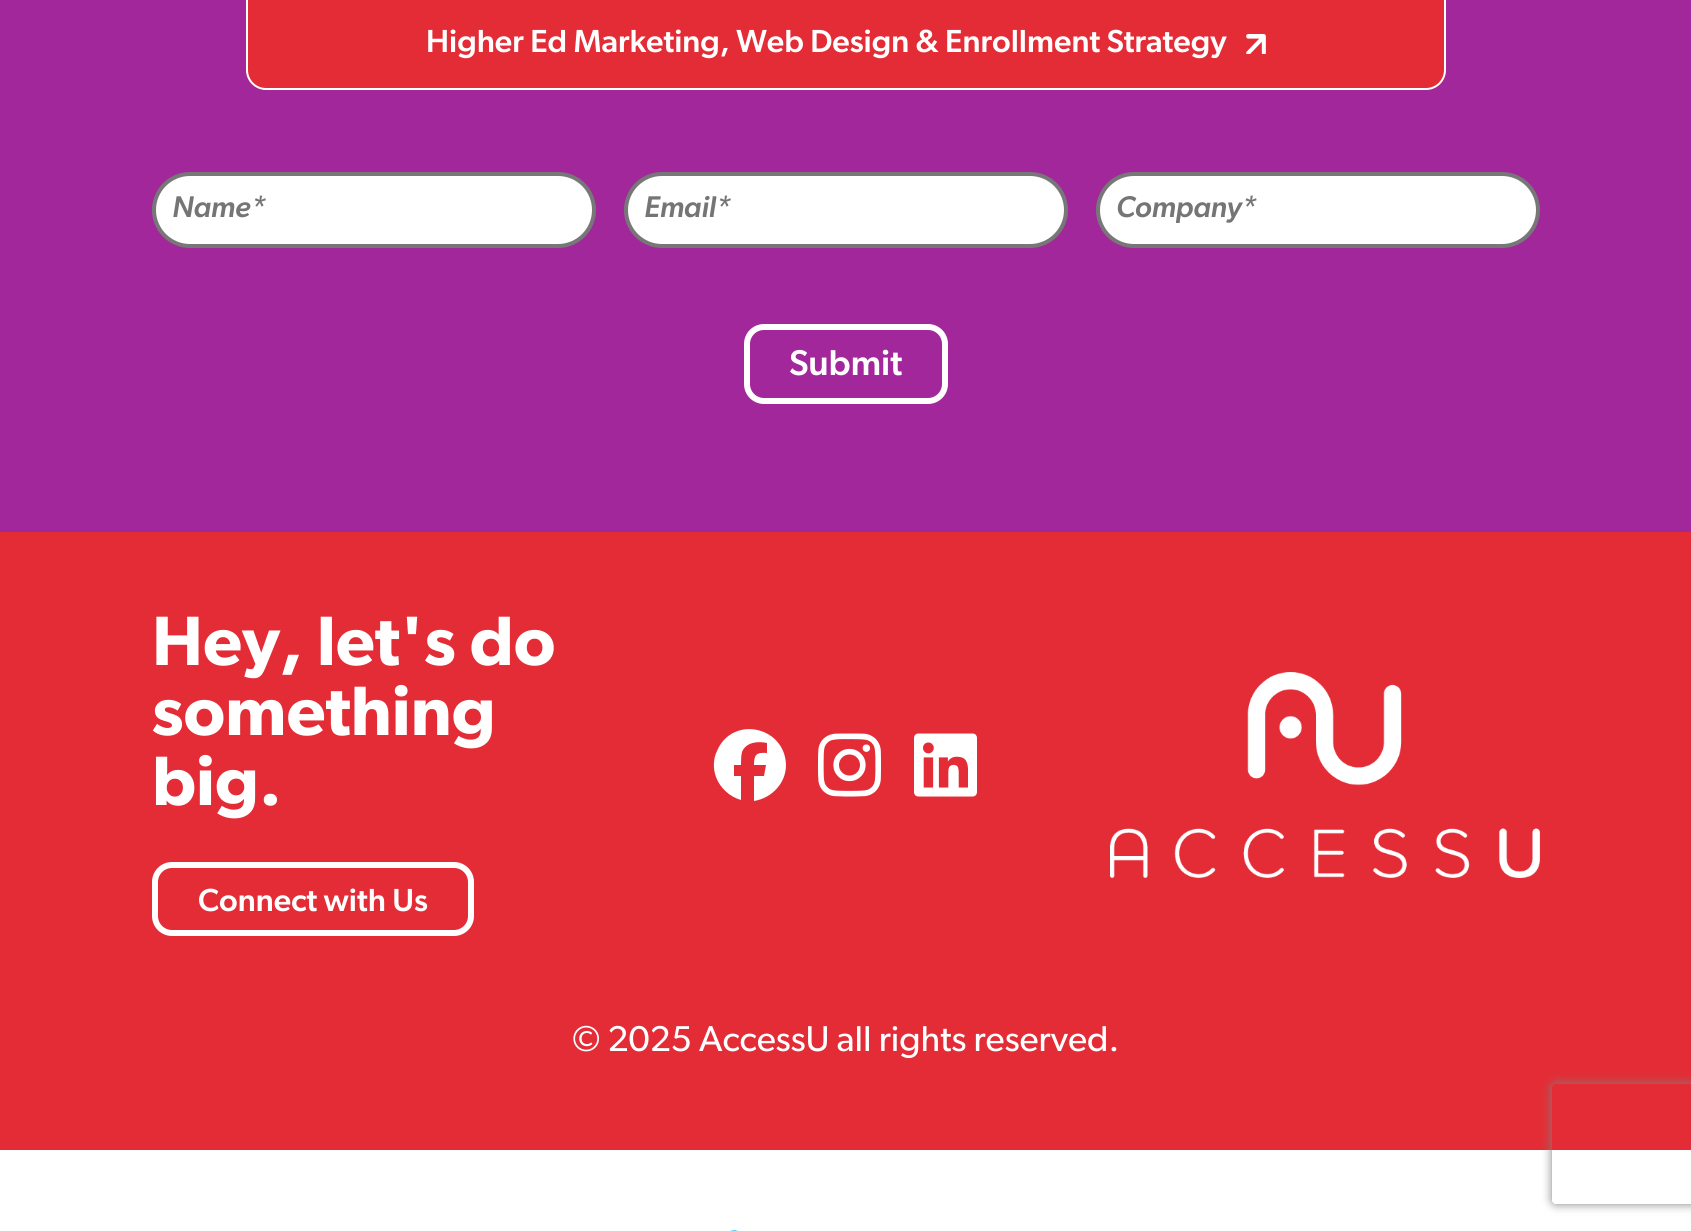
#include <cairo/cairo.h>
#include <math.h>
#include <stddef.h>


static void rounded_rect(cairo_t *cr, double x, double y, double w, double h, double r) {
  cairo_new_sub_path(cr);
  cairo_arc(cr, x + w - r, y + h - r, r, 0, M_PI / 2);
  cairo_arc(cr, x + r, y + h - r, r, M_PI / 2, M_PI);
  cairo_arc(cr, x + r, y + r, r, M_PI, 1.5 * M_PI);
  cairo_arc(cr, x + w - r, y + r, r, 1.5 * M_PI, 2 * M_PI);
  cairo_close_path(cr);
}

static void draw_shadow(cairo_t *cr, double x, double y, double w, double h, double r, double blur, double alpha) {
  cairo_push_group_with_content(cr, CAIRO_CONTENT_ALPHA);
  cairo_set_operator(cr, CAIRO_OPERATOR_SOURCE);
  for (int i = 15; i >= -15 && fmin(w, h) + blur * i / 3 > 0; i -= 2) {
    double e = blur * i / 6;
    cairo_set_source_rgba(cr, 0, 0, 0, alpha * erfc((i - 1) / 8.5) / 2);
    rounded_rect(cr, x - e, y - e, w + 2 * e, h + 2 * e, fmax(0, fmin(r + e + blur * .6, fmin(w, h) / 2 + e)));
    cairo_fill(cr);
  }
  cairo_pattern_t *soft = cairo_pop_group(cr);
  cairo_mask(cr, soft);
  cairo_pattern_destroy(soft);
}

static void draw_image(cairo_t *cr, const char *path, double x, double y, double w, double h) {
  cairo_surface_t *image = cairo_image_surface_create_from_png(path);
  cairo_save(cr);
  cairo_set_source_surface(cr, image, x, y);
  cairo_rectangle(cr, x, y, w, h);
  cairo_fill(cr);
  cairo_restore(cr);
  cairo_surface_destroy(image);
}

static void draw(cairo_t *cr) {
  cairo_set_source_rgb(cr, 1, 1, 1);
  cairo_paint(cr);
  cairo_set_source_rgb(cr, 162 / 255.0, 39 / 255.0, 155 / 255.0);
  cairo_rectangle(cr, 0, 0, 1691, 532);
  cairo_fill(cr);
  cairo_set_source_rgb(cr, 227 / 255.0, 44 / 255.0, 53 / 255.0);
  cairo_new_path(cr);
  cairo_move_to(cr, 246, 0);
  cairo_line_to(cr, 1446, 0);
  cairo_line_to(cr, 1446, 70);
  cairo_curve_to(cr, 1446, 81, 1437, 90, 1426, 90);
  cairo_line_to(cr, 266, 90);
  cairo_curve_to(cr, 255, 90, 246, 81, 246, 70);
  cairo_close_path(cr);
  cairo_fill(cr);
  cairo_set_source_rgb(cr, 1, 1, 1);
  cairo_set_fill_rule(cr, CAIRO_FILL_RULE_EVEN_ODD);
  cairo_new_path(cr);
  cairo_move_to(cr, 246, 0);
  cairo_line_to(cr, 1446, 0);
  cairo_line_to(cr, 1446, 70);
  cairo_curve_to(cr, 1446, 81, 1437, 90, 1426, 90);
  cairo_line_to(cr, 266, 90);
  cairo_curve_to(cr, 255, 90, 246, 81, 246, 70);
  cairo_close_path(cr);
  cairo_move_to(cr, 248, 0);
  cairo_line_to(cr, 1444, 0);
  cairo_line_to(cr, 1444, 70);
  cairo_curve_to(cr, 1444, 80, 1436, 88, 1426, 88);
  cairo_line_to(cr, 266, 88);
  cairo_curve_to(cr, 256, 88, 248, 80, 248, 70);
  cairo_close_path(cr);
  cairo_fill(cr);
  draw_image(cr, "images/1.png", 1246, 34, 20, 20);
  rounded_rect(cr, 154, 174, 440, 72, 36);
  cairo_fill_preserve(cr);
  cairo_set_source_rgb(cr, 119 / 255.0, 119 / 255.0, 119 / 255.0);
  cairo_set_line_width(cr, 4);
  cairo_stroke(cr);
  cairo_set_source_rgb(cr, 1, 1, 1);
  rounded_rect(cr, 626, 174, 440, 72, 36);
  cairo_fill_preserve(cr);
  cairo_set_source_rgb(cr, 119 / 255.0, 119 / 255.0, 119 / 255.0);
  cairo_stroke(cr);
  cairo_set_source_rgb(cr, 1, 1, 1);
  rounded_rect(cr, 1098, 174, 440, 72, 36);
  cairo_fill_preserve(cr);
  cairo_set_source_rgb(cr, 119 / 255.0, 119 / 255.0, 119 / 255.0);
  cairo_stroke(cr);
  cairo_set_source_rgb(cr, 227 / 255.0, 44 / 255.0, 53 / 255.0);
  cairo_rectangle(cr, 0, 532, 1691, 618);
  cairo_fill(cr);
  cairo_save(cr);
  cairo_new_path(cr);
  cairo_move_to(cr, 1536, 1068);
  cairo_line_to(cr, 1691, 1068);
  cairo_line_to(cr, 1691, 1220);
  cairo_line_to(cr, 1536, 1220);
  cairo_close_path(cr);
  cairo_move_to(cr, 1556, 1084);
  cairo_line_to(cr, 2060, 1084);
  cairo_curve_to(cr, 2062, 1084, 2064, 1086, 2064, 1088);
  cairo_line_to(cr, 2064, 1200);
  cairo_curve_to(cr, 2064, 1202, 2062, 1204, 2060, 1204);
  cairo_line_to(cr, 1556, 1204);
  cairo_curve_to(cr, 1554, 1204, 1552, 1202, 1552, 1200);
  cairo_line_to(cr, 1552, 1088);
  cairo_curve_to(cr, 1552, 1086, 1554, 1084, 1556, 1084);
  cairo_close_path(cr);
  cairo_clip(cr);
  cairo_set_source_rgb(cr, 128 / 255.0, 128 / 255.0, 128 / 255.0);
  draw_shadow(cr, 1552, 1084, 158, 120, 4, 5, 1);
  cairo_restore(cr);
  rounded_rect(cr, 747, 327, 198, 74, 17);
  cairo_set_source_rgb(cr, 1, 1, 1);
  cairo_set_line_width(cr, 6);
  cairo_stroke(cr);
  rounded_rect(cr, 155, 865, 316, 68, 17);
  cairo_stroke(cr);
  cairo_set_fill_rule(cr, CAIRO_FILL_RULE_WINDING);
  cairo_new_path(cr);
  cairo_move_to(cr, 786, 765);
  cairo_curve_to(cr, 785, 726, 732, 715, 717, 751);
  cairo_curve_to(cr, 713, 759, 713, 769, 716, 777);
  cairo_curve_to(cr, 720, 788, 730, 797, 741, 800);
  cairo_line_to(cr, 741, 776);
  cairo_line_to(cr, 734, 776);
  cairo_line_to(cr, 734, 765);
  cairo_line_to(cr, 741, 765);
  cairo_curve_to(cr, 741, 761, 741, 756, 742, 752);
  cairo_curve_to(cr, 746, 742, 758, 741, 767, 743);
  cairo_line_to(cr, 767, 753);
  cairo_curve_to(cr, 756, 752, 754, 755, 754, 765);
  cairo_line_to(cr, 766, 765);
  cairo_line_to(cr, 764, 776);
  cairo_line_to(cr, 754, 776);
  cairo_line_to(cr, 754, 801);
  cairo_curve_to(cr, 772, 798, 786, 783, 786, 765);
  cairo_close_path(cr);
  cairo_fill(cr);
  draw_image(cr, "images/2.png", 818, 733, 63, 64);
  draw_image(cr, "images/3.png", 914, 733, 63, 64);
  draw_image(cr, "images/4.png", 1110, 672, 430, 206);
  draw_image(cr, "images/5.png", 730, 1230, 8, 1);
  cairo_select_font_face(cr, "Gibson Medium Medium", CAIRO_FONT_SLANT_NORMAL, CAIRO_FONT_WEIGHT_NORMAL);
  cairo_set_font_size(cr, 32);
  cairo_move_to(cr, 426, 52);
  cairo_show_text(cr, "Higher Ed Marketing, Web Design & Enrollment Strategy");
  cairo_select_font_face(cr, "Gibson Medium Medium", CAIRO_FONT_SLANT_ITALIC, CAIRO_FONT_WEIGHT_NORMAL);
  cairo_set_font_size(cr, 30);
  cairo_set_source_rgb(cr, 117 / 255.0, 117 / 255.0, 117 / 255.0);
  cairo_move_to(cr, 172, 217);
  cairo_show_text(cr, "Name*");
  cairo_move_to(cr, 644, 217);
  cairo_show_text(cr, "Email*");
  cairo_move_to(cr, 1116, 217);
  cairo_show_text(cr, "Company*");
  cairo_select_font_face(cr, "Gibson Medium Medium", CAIRO_FONT_SLANT_NORMAL, CAIRO_FONT_WEIGHT_NORMAL);
  cairo_set_font_size(cr, 36);
  cairo_set_source_rgb(cr, 1, 1, 1);
  cairo_move_to(cr, 789, 375);
  cairo_show_text(cr, "Submit");
  cairo_select_font_face(cr, "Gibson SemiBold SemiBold", CAIRO_FONT_SLANT_NORMAL, CAIRO_FONT_WEIGHT_NORMAL);
  cairo_set_font_size(cr, 70);
  cairo_move_to(cr, 152, 665);
  cairo_show_text(cr, "Hey, let's do");
  cairo_move_to(cr, 152, 735);
  cairo_show_text(cr, "something");
  cairo_move_to(cr, 152, 805);
  cairo_show_text(cr, "big.");
  cairo_select_font_face(cr, "Gibson Medium Medium", CAIRO_FONT_SLANT_NORMAL, CAIRO_FONT_WEIGHT_NORMAL);
  cairo_set_font_size(cr, 32);
  cairo_move_to(cr, 198, 911);
  cairo_show_text(cr, "Connect with Us");
  cairo_select_font_face(cr, "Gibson", CAIRO_FONT_SLANT_NORMAL, CAIRO_FONT_WEIGHT_NORMAL);
  cairo_set_font_size(cr, 36);
  cairo_move_to(cr, 572, 1051);
  cairo_show_text(cr, "© 2025 AccessU all rights reserved.");
}

int main(void) {
  cairo_surface_t *surface = cairo_image_surface_create(CAIRO_FORMAT_RGB24, 1691, 1231);
  cairo_t *cr = cairo_create(surface);
  cairo_font_options_t *options = cairo_font_options_create();
  cairo_font_options_set_hint_metrics(options, CAIRO_HINT_METRICS_OFF);
  cairo_font_options_set_hint_style(options, CAIRO_HINT_STYLE_NONE);
  cairo_set_font_options(cr, options);
  cairo_set_miter_limit(cr, 4);
  draw(cr);
  cairo_surface_write_to_png(surface, "out.png");
  cairo_font_options_destroy(options);
  cairo_destroy(cr);
  cairo_surface_destroy(surface);
  return 0;
}
